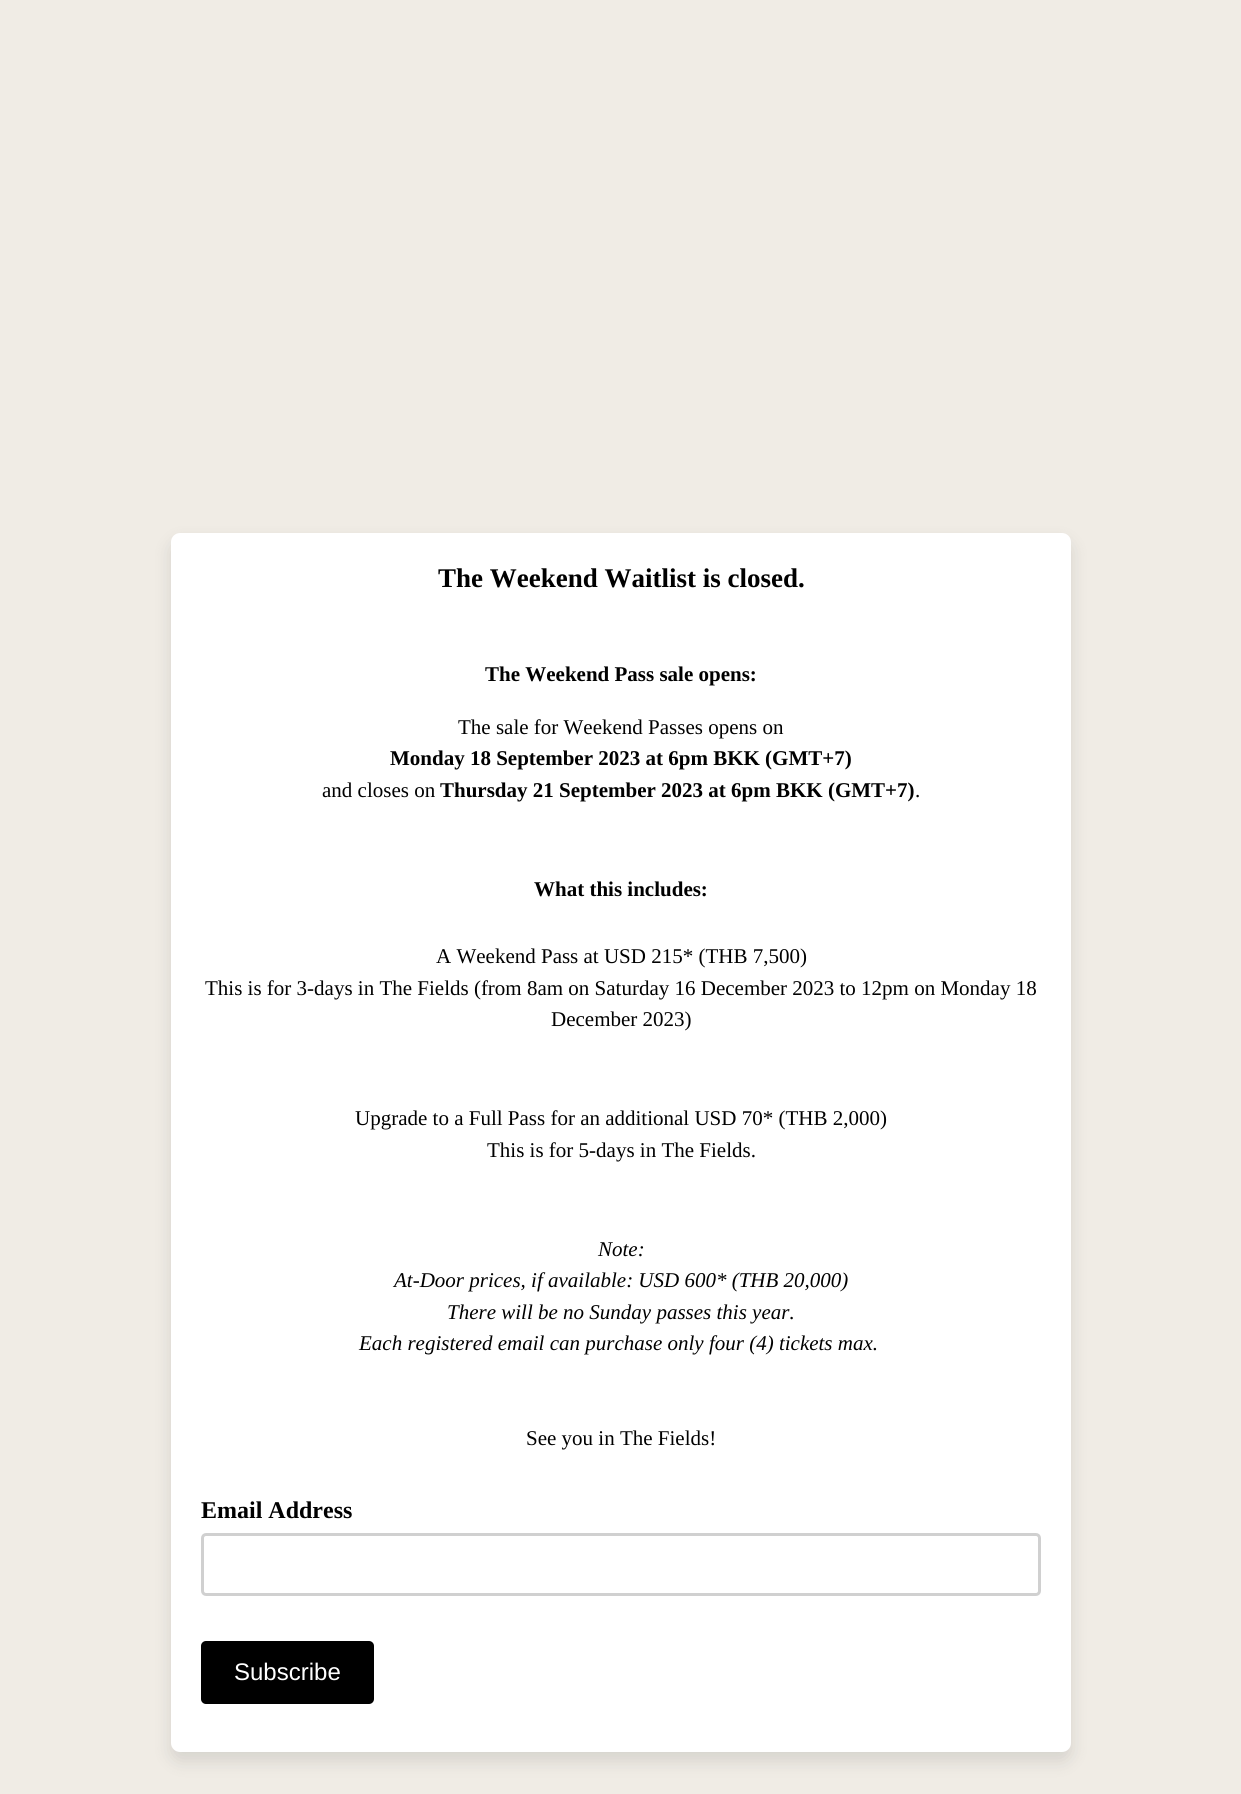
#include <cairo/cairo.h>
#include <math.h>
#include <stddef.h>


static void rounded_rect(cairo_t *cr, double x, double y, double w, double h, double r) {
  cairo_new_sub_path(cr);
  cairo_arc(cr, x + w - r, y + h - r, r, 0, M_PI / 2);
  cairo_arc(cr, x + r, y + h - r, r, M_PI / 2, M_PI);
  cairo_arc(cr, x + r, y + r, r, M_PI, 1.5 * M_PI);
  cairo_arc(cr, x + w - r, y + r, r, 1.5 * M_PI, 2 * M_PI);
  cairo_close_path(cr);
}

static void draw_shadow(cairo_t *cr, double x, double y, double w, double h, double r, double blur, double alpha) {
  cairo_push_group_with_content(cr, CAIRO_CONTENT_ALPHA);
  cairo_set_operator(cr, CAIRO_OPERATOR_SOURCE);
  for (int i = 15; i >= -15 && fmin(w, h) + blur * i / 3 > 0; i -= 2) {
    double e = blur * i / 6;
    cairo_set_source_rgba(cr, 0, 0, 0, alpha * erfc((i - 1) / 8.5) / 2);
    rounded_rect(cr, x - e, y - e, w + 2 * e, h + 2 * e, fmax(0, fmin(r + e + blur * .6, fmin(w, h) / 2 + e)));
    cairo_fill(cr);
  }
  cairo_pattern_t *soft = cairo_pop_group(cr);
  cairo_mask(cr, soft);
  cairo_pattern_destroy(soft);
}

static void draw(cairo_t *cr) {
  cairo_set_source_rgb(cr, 240 / 255.0, 236 / 255.0, 229 / 255.0);
  cairo_paint(cr);
  cairo_set_source_rgb(cr, 13 / 255.0, 18 / 255.0, 22 / 255.0);
  draw_shadow(cr, 171, 542, 900, 1219, 9, 9, 0.12);
  cairo_set_source_rgb(cr, 1, 1, 1);
  rounded_rect(cr, 171, 533, 900, 1219, 9);
  cairo_fill(cr);
  rounded_rect(cr, 202.5, 1534.5, 837, 60, 3.5);
  cairo_set_source_rgb(cr, 208 / 255.0, 208 / 255.0, 208 / 255.0);
  cairo_set_line_width(cr, 3);
  cairo_stroke(cr);
  cairo_set_source_rgb(cr, 0, 0, 0);
  rounded_rect(cr, 201, 1641, 173, 63, 5);
  cairo_fill(cr);
  cairo_select_font_face(cr, "Liberation Serif", CAIRO_FONT_SLANT_NORMAL, CAIRO_FONT_WEIGHT_BOLD);
  cairo_set_font_size(cr, 27);
  cairo_move_to(cr, 438, 587);
  cairo_show_text(cr, "The Weekend Waitlist is closed.");
  cairo_set_font_size(cr, 21);
  cairo_move_to(cr, 485, 681);
  cairo_show_text(cr, "The Weekend Pass sale opens:");
  cairo_select_font_face(cr, "Liberation Serif", CAIRO_FONT_SLANT_NORMAL, CAIRO_FONT_WEIGHT_NORMAL);
  cairo_move_to(cr, 458, 734);
  cairo_show_text(cr, "The sale for Weekend Passes opens on");
  cairo_select_font_face(cr, "Liberation Serif", CAIRO_FONT_SLANT_NORMAL, CAIRO_FONT_WEIGHT_BOLD);
  cairo_move_to(cr, 390, 765);
  cairo_show_text(cr, "Monday 18 September 2023 at 6pm BKK (GMT+7)");
  cairo_select_font_face(cr, "Liberation Serif", CAIRO_FONT_SLANT_NORMAL, CAIRO_FONT_WEIGHT_NORMAL);
  cairo_move_to(cr, 322, 797);
  cairo_show_text(cr, "and closes on");
  cairo_select_font_face(cr, "Liberation Serif", CAIRO_FONT_SLANT_NORMAL, CAIRO_FONT_WEIGHT_BOLD);
  cairo_move_to(cr, 440, 797);
  cairo_show_text(cr, "Thursday 21 September 2023 at 6pm BKK (GMT+7)");
  cairo_select_font_face(cr, "Liberation Serif", CAIRO_FONT_SLANT_NORMAL, CAIRO_FONT_WEIGHT_NORMAL);
  cairo_move_to(cr, 915, 797);
  cairo_show_text(cr, ".");
  cairo_select_font_face(cr, "Liberation Serif", CAIRO_FONT_SLANT_NORMAL, CAIRO_FONT_WEIGHT_BOLD);
  cairo_move_to(cr, 534, 896);
  cairo_show_text(cr, "What this includes:");
  cairo_select_font_face(cr, "Liberation Serif", CAIRO_FONT_SLANT_NORMAL, CAIRO_FONT_WEIGHT_NORMAL);
  cairo_move_to(cr, 436, 963);
  cairo_show_text(cr, "A Weekend Pass at USD 215* (THB 7,500)");
  cairo_move_to(cr, 205, 995);
  cairo_show_text(cr, "This is for 3-days in The Fields (from 8am on Saturday 16 December 2023 to 12pm on Monday 18");
  cairo_move_to(cr, 551, 1026);
  cairo_show_text(cr, "December 2023)");
  cairo_move_to(cr, 355, 1125);
  cairo_show_text(cr, "Upgrade to a Full Pass for an additional USD 70* (THB 2,000)");
  cairo_move_to(cr, 487, 1157);
  cairo_show_text(cr, "This is for 5-days in The Fields.");
  cairo_select_font_face(cr, "Liberation Serif", CAIRO_FONT_SLANT_ITALIC, CAIRO_FONT_WEIGHT_NORMAL);
  cairo_move_to(cr, 598, 1256);
  cairo_show_text(cr, "Note:");
  cairo_move_to(cr, 394, 1287);
  cairo_show_text(cr, "At-Door prices, if available: USD 600* (THB 20,000)");
  cairo_move_to(cr, 447, 1319);
  cairo_show_text(cr, "There will be no Sunday passes this year.");
  cairo_move_to(cr, 359, 1350);
  cairo_show_text(cr, "Each registered email can purchase only four (4) tickets max.");
  cairo_select_font_face(cr, "Liberation Serif", CAIRO_FONT_SLANT_NORMAL, CAIRO_FONT_WEIGHT_NORMAL);
  cairo_move_to(cr, 526, 1445);
  cairo_show_text(cr, "See you in The Fields!");
  cairo_select_font_face(cr, "Liberation Serif", CAIRO_FONT_SLANT_NORMAL, CAIRO_FONT_WEIGHT_BOLD);
  cairo_set_font_size(cr, 24);
  cairo_move_to(cr, 201, 1518);
  cairo_show_text(cr, "Email Address");
  cairo_select_font_face(cr, "Liberation Sans", CAIRO_FONT_SLANT_NORMAL, CAIRO_FONT_WEIGHT_NORMAL);
  cairo_set_source_rgb(cr, 1, 1, 1);
  cairo_move_to(cr, 234, 1680);
  cairo_show_text(cr, "Subscribe");
}

int main(void) {
  cairo_surface_t *surface = cairo_image_surface_create(CAIRO_FORMAT_RGB24, 1241, 1794);
  cairo_t *cr = cairo_create(surface);
  cairo_font_options_t *options = cairo_font_options_create();
  cairo_font_options_set_hint_metrics(options, CAIRO_HINT_METRICS_OFF);
  cairo_font_options_set_hint_style(options, CAIRO_HINT_STYLE_NONE);
  cairo_set_font_options(cr, options);
  cairo_set_miter_limit(cr, 4);
  draw(cr);
  cairo_surface_write_to_png(surface, "out.png");
  cairo_font_options_destroy(options);
  cairo_destroy(cr);
  cairo_surface_destroy(surface);
  return 0;
}
